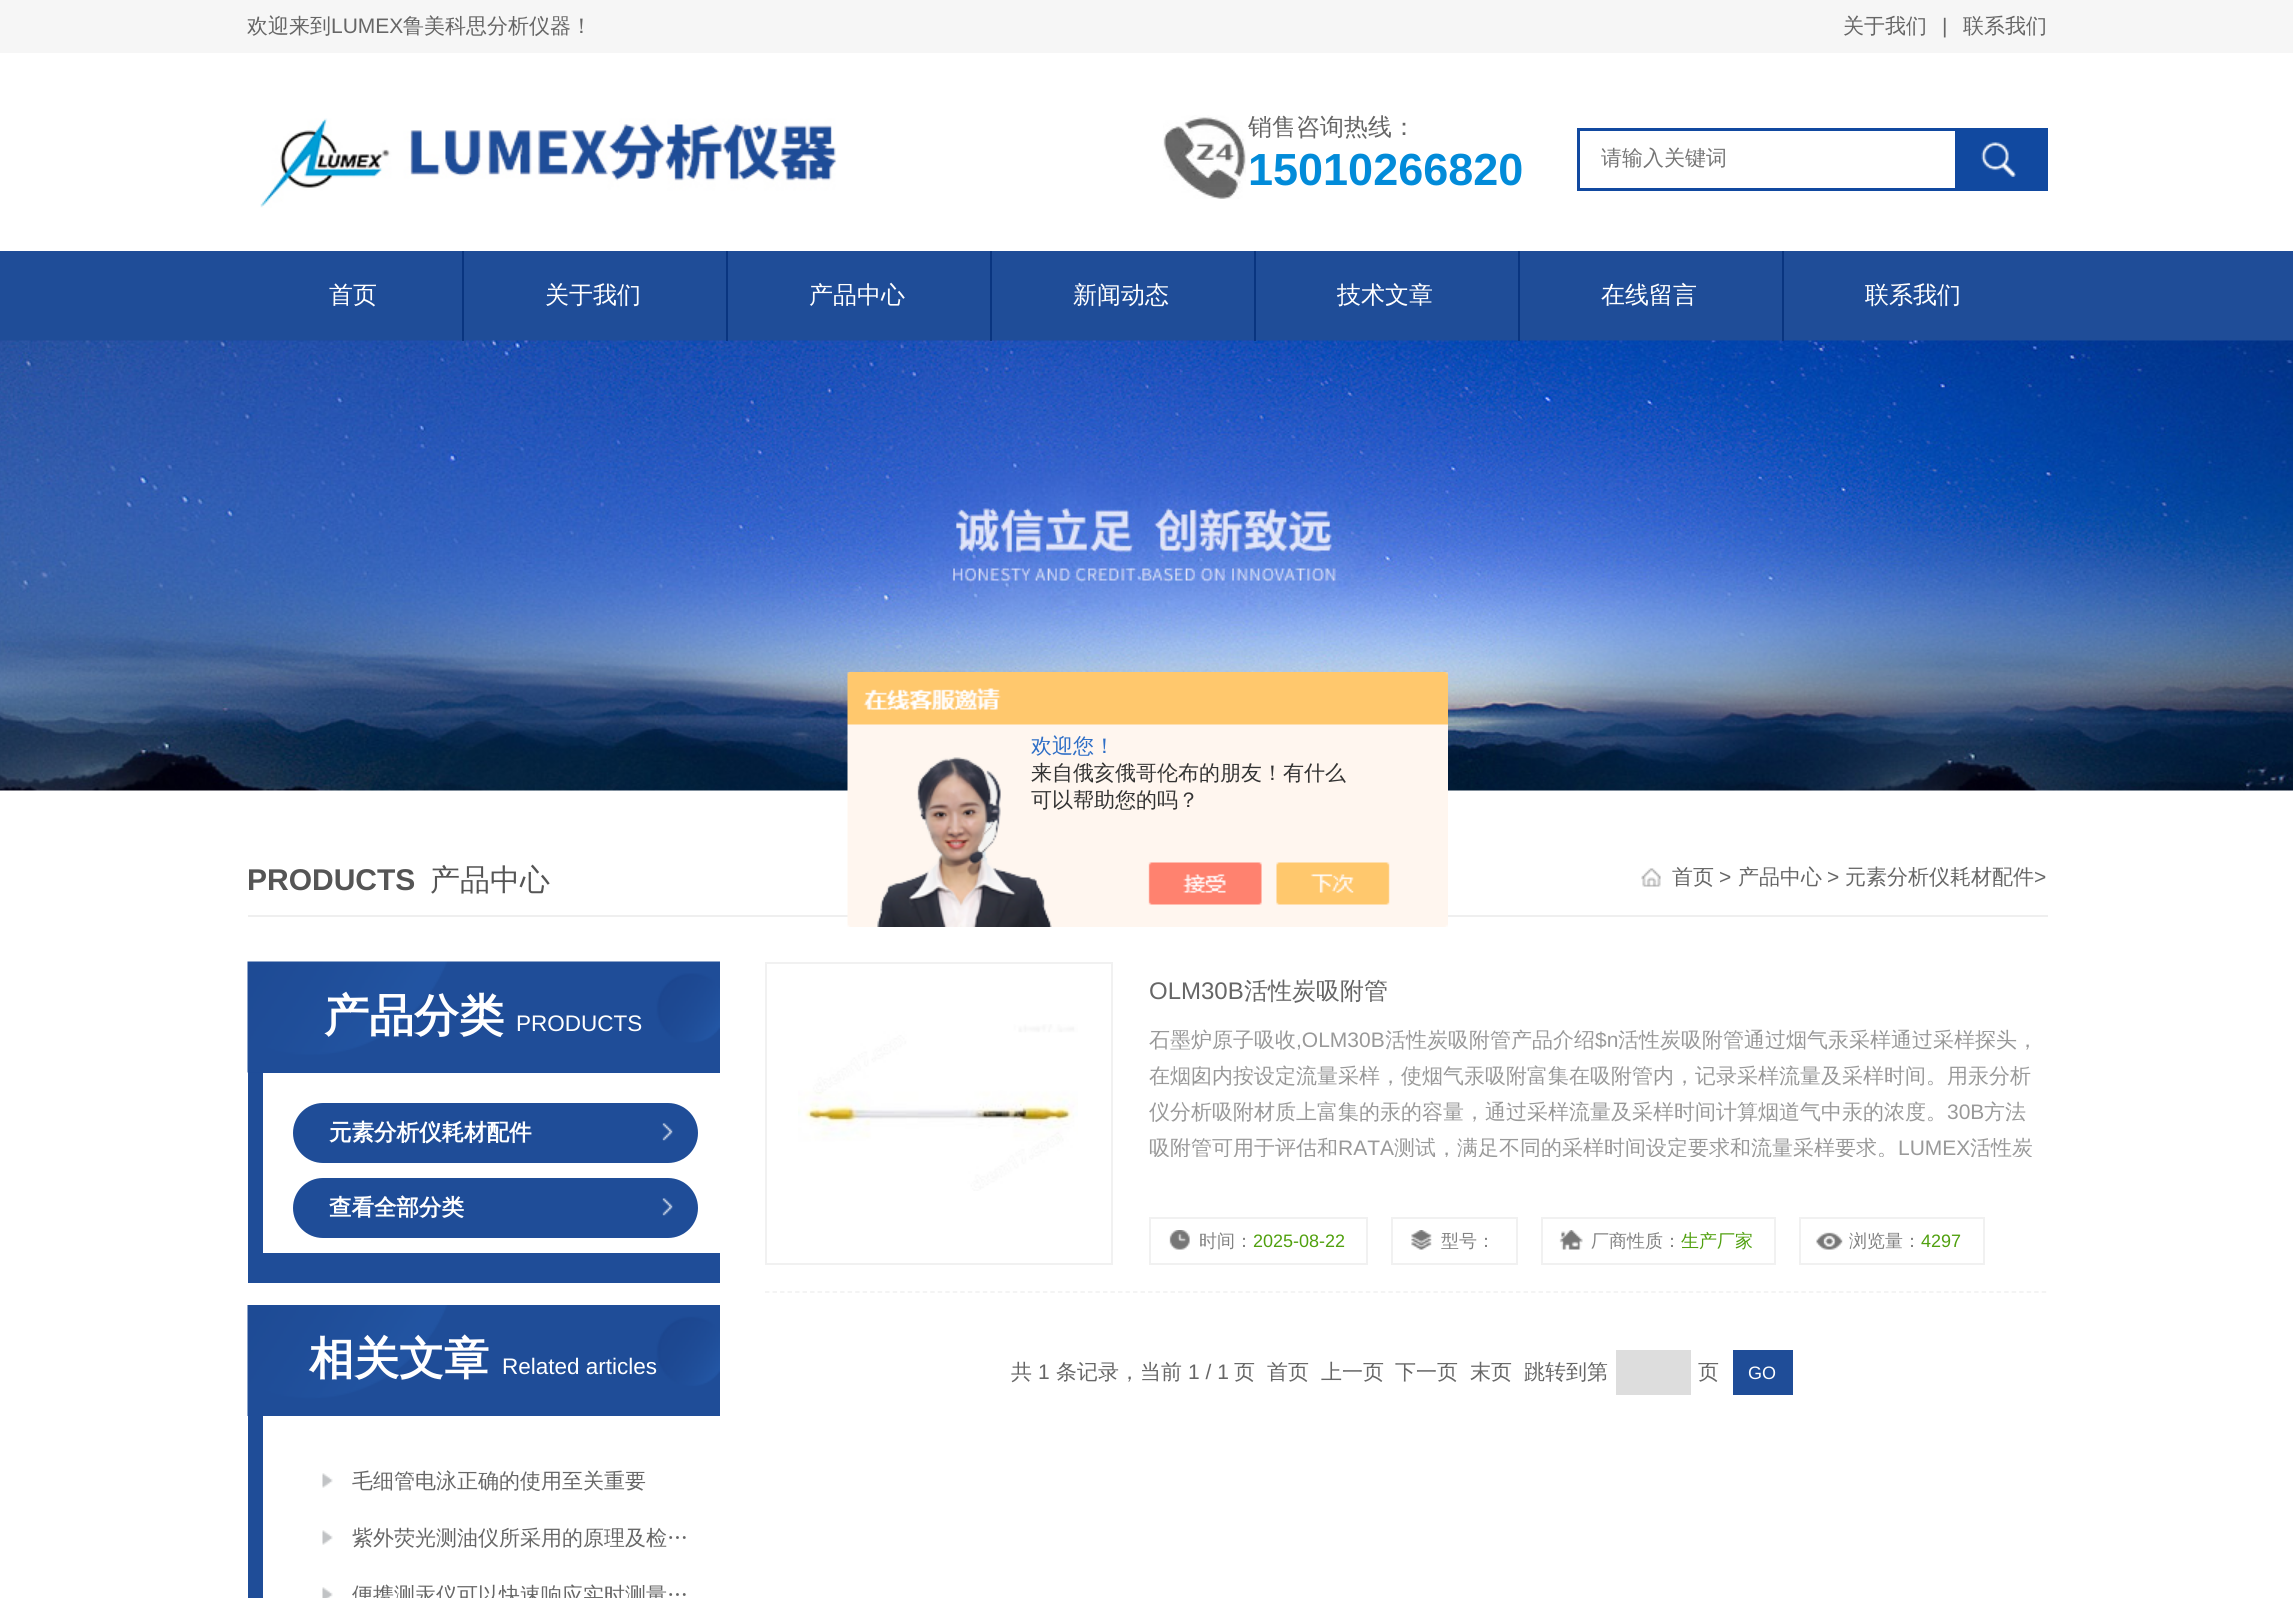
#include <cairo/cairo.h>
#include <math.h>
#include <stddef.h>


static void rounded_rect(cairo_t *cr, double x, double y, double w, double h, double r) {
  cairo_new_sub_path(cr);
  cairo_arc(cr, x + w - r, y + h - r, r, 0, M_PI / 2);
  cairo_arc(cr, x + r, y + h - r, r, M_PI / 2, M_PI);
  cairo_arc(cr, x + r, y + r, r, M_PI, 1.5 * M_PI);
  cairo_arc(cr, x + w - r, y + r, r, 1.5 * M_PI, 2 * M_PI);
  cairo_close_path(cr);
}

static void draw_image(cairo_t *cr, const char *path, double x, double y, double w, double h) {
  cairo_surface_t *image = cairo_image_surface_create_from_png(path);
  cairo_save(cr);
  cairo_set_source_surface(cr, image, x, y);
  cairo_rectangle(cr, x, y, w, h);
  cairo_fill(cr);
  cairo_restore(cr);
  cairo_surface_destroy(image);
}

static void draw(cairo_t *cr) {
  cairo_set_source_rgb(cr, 1, 1, 1);
  cairo_paint(cr);
  cairo_set_source_rgb(cr, 246 / 255.0, 246 / 255.0, 246 / 255.0);
  cairo_rectangle(cr, 0, 0, 2293, 53);
  cairo_fill(cr);
  draw_image(cr, "images/1.png", 260, 118, 577, 90);
  draw_image(cr, "images/2.png", 1163, 115, 83, 84);
  cairo_rectangle(cr, 1578.5, 129.5, 468, 60);
  cairo_set_source_rgb(cr, 17 / 255.0, 73 / 255.0, 160 / 255.0);
  cairo_set_line_width(cr, 3);
  cairo_stroke(cr);
  cairo_rectangle(cr, 1955, 131, 90, 57);
  cairo_fill(cr);
  draw_image(cr, "images/3.png", 1981, 142, 35, 35);
  cairo_set_source_rgb(cr, 31 / 255.0, 77 / 255.0, 152 / 255.0);
  cairo_rectangle(cr, 0, 251, 2293, 90);
  cairo_fill(cr);
  draw_image(cr, "images/4.png", 0, 340, 2293, 451);
  cairo_set_source_rgb(cr, 9 / 255.0, 53 / 255.0, 128 / 255.0);
  cairo_rectangle(cr, 462, 251, 2, 90);
  cairo_fill(cr);
  cairo_rectangle(cr, 726, 251, 2, 90);
  cairo_fill(cr);
  cairo_rectangle(cr, 990, 251, 2, 90);
  cairo_fill(cr);
  cairo_rectangle(cr, 1254, 251, 2, 90);
  cairo_fill(cr);
  cairo_rectangle(cr, 1518, 251, 2, 90);
  cairo_fill(cr);
  cairo_rectangle(cr, 1782, 251, 2, 90);
  cairo_fill(cr);
  cairo_set_source_rgb(cr, 239 / 255.0, 239 / 255.0, 239 / 255.0);
  cairo_rectangle(cr, 248, 915, 1800, 2);
  cairo_fill(cr);
  draw_image(cr, "images/5.png", 847, 672, 601, 255);
  draw_image(cr, "images/6.png", 1641, 868, 20, 19);
  cairo_set_source_rgb(cr, 31 / 255.0, 77 / 255.0, 152 / 255.0);
  cairo_rectangle(cr, 248, 1072, 472, 211);
  cairo_fill(cr);
  draw_image(cr, "images/7.png", 247, 961, 473, 112);
  cairo_set_source_rgb(cr, 1, 1, 1);
  cairo_rectangle(cr, 263, 1073, 457, 180);
  cairo_fill(cr);
  cairo_set_source_rgb(cr, 31 / 255.0, 77 / 255.0, 152 / 255.0);
  rounded_rect(cr, 293, 1103, 405, 60, 30);
  cairo_fill(cr);
  draw_image(cr, "images/8.png", 662, 1123, 11, 18);
  rounded_rect(cr, 293, 1178, 405, 60, 30);
  cairo_fill(cr);
  draw_image(cr, "images/8.png", 662, 1198, 11, 18);
  cairo_rectangle(cr, 248, 1416, 15, 182);
  cairo_fill(cr);
  draw_image(cr, "images/9.png", 247, 1305, 473, 111);
  draw_image(cr, "images/10.png", 322, 1473, 11, 15);
  draw_image(cr, "images/10.png", 322, 1530, 11, 15);
  draw_image(cr, "images/11.png", 322, 1587, 11, 11);
  cairo_new_path(cr);
  cairo_move_to(cr, 765, 1292);
  cairo_line_to(cr, 2047.5, 1292);
  cairo_set_source_rgb(cr, 241 / 255.0, 241 / 255.0, 241 / 255.0);
  cairo_set_line_width(cr, 1.5);
  cairo_set_dash(cr, (double[]){4.5, 3.01}, 2, 0);
  cairo_stroke(cr);
  cairo_rectangle(cr, 766, 963, 346, 301);
  cairo_set_line_width(cr, 2);
  cairo_set_dash(cr, NULL, 0, 0);
  cairo_stroke(cr);
  draw_image(cr, "images/12.png", 798, 1024, 280, 167);
  draw_image(cr, "images/13.png", 1169, 1230, 21, 20);
  cairo_rectangle(cr, 1150, 1218, 217, 46);
  cairo_stroke(cr);
  draw_image(cr, "images/14.png", 1411, 1230, 21, 20);
  cairo_rectangle(cr, 1392, 1218, 125, 46);
  cairo_stroke(cr);
  draw_image(cr, "images/15.png", 1559, 1230, 24, 20);
  cairo_rectangle(cr, 1542, 1218, 233, 46);
  cairo_stroke(cr);
  draw_image(cr, "images/16.png", 1816, 1232, 27, 18);
  cairo_rectangle(cr, 1800, 1218, 184, 46);
  cairo_stroke(cr);
  cairo_set_source_rgb(cr, 221 / 255.0, 221 / 255.0, 221 / 255.0);
  cairo_rectangle(cr, 1616, 1350, 75, 45);
  cairo_fill(cr);
  cairo_set_source_rgb(cr, 31 / 255.0, 77 / 255.0, 152 / 255.0);
  cairo_rectangle(cr, 1733, 1350, 60, 45);
  cairo_fill(cr);
  cairo_select_font_face(cr, "WenQuanYi Zen Hei Medium", CAIRO_FONT_SLANT_NORMAL, CAIRO_FONT_WEIGHT_NORMAL);
  cairo_set_font_size(cr, 21);
  cairo_set_source_rgb(cr, 102 / 255.0, 102 / 255.0, 102 / 255.0);
  cairo_move_to(cr, 247, 33);
  cairo_show_text(cr, "欢迎来到");
  cairo_select_font_face(cr, "Liberation Sans", CAIRO_FONT_SLANT_NORMAL, CAIRO_FONT_WEIGHT_NORMAL);
  cairo_move_to(cr, 331, 33);
  cairo_show_text(cr, "LUMEX");
  cairo_select_font_face(cr, "WenQuanYi Zen Hei Medium", CAIRO_FONT_SLANT_NORMAL, CAIRO_FONT_WEIGHT_NORMAL);
  cairo_move_to(cr, 403, 33);
  cairo_show_text(cr, "鲁美科思分析仪器！");
  cairo_move_to(cr, 1843, 33);
  cairo_show_text(cr, "关于我们");
  cairo_select_font_face(cr, "Liberation Sans", CAIRO_FONT_SLANT_NORMAL, CAIRO_FONT_WEIGHT_NORMAL);
  cairo_move_to(cr, 1942, 33);
  cairo_show_text(cr, "|");
  cairo_select_font_face(cr, "WenQuanYi Zen Hei Medium", CAIRO_FONT_SLANT_NORMAL, CAIRO_FONT_WEIGHT_NORMAL);
  cairo_move_to(cr, 1963, 33);
  cairo_show_text(cr, "联系我们");
  cairo_set_font_size(cr, 24);
  cairo_move_to(cr, 1248, 135);
  cairo_show_text(cr, "销售咨询热线：");
  cairo_select_font_face(cr, "Liberation Sans", CAIRO_FONT_SLANT_NORMAL, CAIRO_FONT_WEIGHT_BOLD);
  cairo_set_font_size(cr, 45);
  cairo_set_source_rgb(cr, 2 / 255.0, 139 / 255.0, 217 / 255.0);
  cairo_move_to(cr, 1248, 185);
  cairo_show_text(cr, "15010266820");
  cairo_select_font_face(cr, "WenQuanYi Zen Hei Medium", CAIRO_FONT_SLANT_NORMAL, CAIRO_FONT_WEIGHT_NORMAL);
  cairo_set_font_size(cr, 21);
  cairo_set_source_rgb(cr, 117 / 255.0, 117 / 255.0, 117 / 255.0);
  cairo_move_to(cr, 1601, 165);
  cairo_show_text(cr, "请输入关键词");
  cairo_set_font_size(cr, 24);
  cairo_set_source_rgb(cr, 1, 1, 1);
  cairo_move_to(cr, 329, 303);
  cairo_show_text(cr, "首页");
  cairo_move_to(cr, 545, 303);
  cairo_show_text(cr, "关于我们");
  cairo_move_to(cr, 809, 303);
  cairo_show_text(cr, "产品中心");
  cairo_move_to(cr, 1073, 303);
  cairo_show_text(cr, "新闻动态");
  cairo_move_to(cr, 1337, 303);
  cairo_show_text(cr, "技术文章");
  cairo_move_to(cr, 1601, 303);
  cairo_show_text(cr, "在线留言");
  cairo_move_to(cr, 1865, 303);
  cairo_show_text(cr, "联系我们");
  cairo_set_font_size(cr, 21);
  cairo_set_source_rgb(cr, 46 / 255.0, 110 / 255.0, 198 / 255.0);
  cairo_move_to(cr, 1031, 753);
  cairo_show_text(cr, "欢迎您！");
  cairo_set_source_rgb(cr, 51 / 255.0, 51 / 255.0, 51 / 255.0);
  cairo_move_to(cr, 1031, 780);
  cairo_show_text(cr, "来自俄亥俄哥伦布的朋友！有什么");
  cairo_move_to(cr, 1031, 807);
  cairo_show_text(cr, "可以帮助您的吗？");
  cairo_select_font_face(cr, "Liberation Sans", CAIRO_FONT_SLANT_NORMAL, CAIRO_FONT_WEIGHT_BOLD);
  cairo_set_font_size(cr, 30);
  cairo_set_source_rgb(cr, 85 / 255.0, 85 / 255.0, 85 / 255.0);
  cairo_move_to(cr, 247, 890);
  cairo_show_text(cr, "PRODUCTS");
  cairo_select_font_face(cr, "WenQuanYi Zen Hei Medium", CAIRO_FONT_SLANT_NORMAL, CAIRO_FONT_WEIGHT_NORMAL);
  cairo_move_to(cr, 430, 890);
  cairo_show_text(cr, "产品中心");
  cairo_set_font_size(cr, 21);
  cairo_set_source_rgb(cr, 102 / 255.0, 102 / 255.0, 102 / 255.0);
  cairo_move_to(cr, 1672, 884);
  cairo_show_text(cr, "首页");
  cairo_select_font_face(cr, "Liberation Sans", CAIRO_FONT_SLANT_NORMAL, CAIRO_FONT_WEIGHT_NORMAL);
  cairo_move_to(cr, 1719, 884);
  cairo_show_text(cr, ">");
  cairo_select_font_face(cr, "WenQuanYi Zen Hei Medium", CAIRO_FONT_SLANT_NORMAL, CAIRO_FONT_WEIGHT_NORMAL);
  cairo_move_to(cr, 1738, 884);
  cairo_show_text(cr, "产品中心");
  cairo_select_font_face(cr, "Liberation Sans", CAIRO_FONT_SLANT_NORMAL, CAIRO_FONT_WEIGHT_NORMAL);
  cairo_move_to(cr, 1827, 884);
  cairo_show_text(cr, ">");
  cairo_select_font_face(cr, "WenQuanYi Zen Hei Medium", CAIRO_FONT_SLANT_NORMAL, CAIRO_FONT_WEIGHT_NORMAL);
  cairo_move_to(cr, 1845, 884);
  cairo_show_text(cr, "元素分析仪耗材配件");
  cairo_select_font_face(cr, "Liberation Sans", CAIRO_FONT_SLANT_NORMAL, CAIRO_FONT_WEIGHT_NORMAL);
  cairo_move_to(cr, 2034, 884);
  cairo_show_text(cr, ">");
  cairo_select_font_face(cr, "WenQuanYi Zen Hei", CAIRO_FONT_SLANT_NORMAL, CAIRO_FONT_WEIGHT_BOLD);
  cairo_set_font_size(cr, 45);
  cairo_set_source_rgb(cr, 1, 1, 1);
  cairo_move_to(cr, 324, 1031);
  cairo_show_text(cr, "产品分类");
  cairo_select_font_face(cr, "Liberation Sans", CAIRO_FONT_SLANT_NORMAL, CAIRO_FONT_WEIGHT_NORMAL);
  cairo_set_font_size(cr, 22.5);
  cairo_move_to(cr, 516, 1031);
  cairo_show_text(cr, "PRODUCTS");
  cairo_select_font_face(cr, "WenQuanYi Zen Hei", CAIRO_FONT_SLANT_NORMAL, CAIRO_FONT_WEIGHT_BOLD);
  cairo_move_to(cr, 329, 1140);
  cairo_show_text(cr, "元素分析仪耗材配件");
  cairo_move_to(cr, 329, 1215);
  cairo_show_text(cr, "查看全部分类");
  cairo_set_font_size(cr, 45);
  cairo_move_to(cr, 309, 1374);
  cairo_show_text(cr, "相关文章");
  cairo_select_font_face(cr, "Liberation Sans", CAIRO_FONT_SLANT_NORMAL, CAIRO_FONT_WEIGHT_NORMAL);
  cairo_set_font_size(cr, 22.5);
  cairo_move_to(cr, 502, 1374);
  cairo_show_text(cr, "Related articles");
  cairo_select_font_face(cr, "WenQuanYi Zen Hei Medium", CAIRO_FONT_SLANT_NORMAL, CAIRO_FONT_WEIGHT_NORMAL);
  cairo_set_font_size(cr, 21);
  cairo_set_source_rgb(cr, 102 / 255.0, 102 / 255.0, 102 / 255.0);
  cairo_move_to(cr, 352, 1488);
  cairo_show_text(cr, "毛细管电泳正确的使用至关重要");
  cairo_move_to(cr, 352, 1545);
  cairo_show_text(cr, "紫外荧光测油仪所采用的原理及检…");
  cairo_move_to(cr, 352, 1602);
  cairo_show_text(cr, "便携测汞仪可以快速响应实时测量…");
  cairo_select_font_face(cr, "Liberation Sans", CAIRO_FONT_SLANT_NORMAL, CAIRO_FONT_WEIGHT_NORMAL);
  cairo_set_font_size(cr, 24);
  cairo_move_to(cr, 1149, 999);
  cairo_show_text(cr, "OLM30B");
  cairo_select_font_face(cr, "WenQuanYi Zen Hei Medium", CAIRO_FONT_SLANT_NORMAL, CAIRO_FONT_WEIGHT_NORMAL);
  cairo_move_to(cr, 1244, 999);
  cairo_show_text(cr, "活性炭吸附管");
  cairo_set_font_size(cr, 21);
  cairo_set_source_rgb(cr, 153 / 255.0, 153 / 255.0, 153 / 255.0);
  cairo_move_to(cr, 1149, 1047);
  cairo_show_text(cr, "石墨炉原子吸收");
  cairo_select_font_face(cr, "Liberation Sans", CAIRO_FONT_SLANT_NORMAL, CAIRO_FONT_WEIGHT_NORMAL);
  cairo_move_to(cr, 1296, 1047);
  cairo_show_text(cr, ",OLM30B");
  cairo_select_font_face(cr, "WenQuanYi Zen Hei Medium", CAIRO_FONT_SLANT_NORMAL, CAIRO_FONT_WEIGHT_NORMAL);
  cairo_move_to(cr, 1385, 1047);
  cairo_show_text(cr, "活性炭吸附管产品介绍");
  cairo_select_font_face(cr, "Liberation Sans", CAIRO_FONT_SLANT_NORMAL, CAIRO_FONT_WEIGHT_NORMAL);
  cairo_move_to(cr, 1595, 1047);
  cairo_show_text(cr, "$n");
  cairo_select_font_face(cr, "WenQuanYi Zen Hei Medium", CAIRO_FONT_SLANT_NORMAL, CAIRO_FONT_WEIGHT_NORMAL);
  cairo_move_to(cr, 1618, 1047);
  cairo_show_text(cr, "活性炭吸附管通过烟气汞采样通过采样探头，");
  cairo_move_to(cr, 1149, 1083);
  cairo_show_text(cr, "在烟囱内按设定流量采样，使烟气汞吸附富集在吸附管内，记录采样流量及采样时间。用汞分析");
  cairo_move_to(cr, 1149, 1119);
  cairo_show_text(cr, "仪分析吸附材质上富集的汞的容量，通过采样流量及采样时间计算烟道气中汞的浓度。");
  cairo_select_font_face(cr, "Liberation Sans", CAIRO_FONT_SLANT_NORMAL, CAIRO_FONT_WEIGHT_NORMAL);
  cairo_move_to(cr, 1947, 1119);
  cairo_show_text(cr, "30B");
  cairo_select_font_face(cr, "WenQuanYi Zen Hei Medium", CAIRO_FONT_SLANT_NORMAL, CAIRO_FONT_WEIGHT_NORMAL);
  cairo_move_to(cr, 1984, 1119);
  cairo_show_text(cr, "方法");
  cairo_save(cr);
  cairo_rectangle(cr, 1149, 1022, 899, 135);
  cairo_clip(cr);
  cairo_move_to(cr, 1149, 1155);
  cairo_show_text(cr, "吸附管可用于评估和");
  cairo_restore(cr);
  cairo_select_font_face(cr, "Liberation Sans", CAIRO_FONT_SLANT_NORMAL, CAIRO_FONT_WEIGHT_NORMAL);
  cairo_move_to(cr, 1338, 1155);
  cairo_show_text(cr, "RATA");
  cairo_save(cr);
  cairo_rectangle(cr, 1149, 1022, 899, 135);
  cairo_clip(cr);
  cairo_select_font_face(cr, "WenQuanYi Zen Hei Medium", CAIRO_FONT_SLANT_NORMAL, CAIRO_FONT_WEIGHT_NORMAL);
  cairo_move_to(cr, 1394, 1155);
  cairo_show_text(cr, "测试，满足不同的采样时间设定要求和流量采样要求。");
  cairo_restore(cr);
  cairo_move_to(cr, 1898, 1155);
  cairo_show_text(cr, "LUMEX");
  cairo_save(cr);
  cairo_rectangle(cr, 1149, 1022, 899, 135);
  cairo_clip(cr);
  cairo_select_font_face(cr, "WenQuanYi Zen Hei Medium", CAIRO_FONT_SLANT_NORMAL, CAIRO_FONT_WEIGHT_NORMAL);
  cairo_move_to(cr, 1970, 1155);
  cairo_show_text(cr, "活性炭");
  cairo_restore(cr);
  cairo_select_font_face(cr, "WenQuanYi Zen Hei Medium", CAIRO_FONT_SLANT_NORMAL, CAIRO_FONT_WEIGHT_NORMAL);
  cairo_set_font_size(cr, 18);
  cairo_set_source_rgb(cr, 130 / 255.0, 130 / 255.0, 130 / 255.0);
  cairo_move_to(cr, 1199, 1247);
  cairo_show_text(cr, "时间：");
  cairo_select_font_face(cr, "Liberation Sans", CAIRO_FONT_SLANT_NORMAL, CAIRO_FONT_WEIGHT_NORMAL);
  cairo_set_source_rgb(cr, 80 / 255.0, 160 / 255.0, 14 / 255.0);
  cairo_move_to(cr, 1253, 1247);
  cairo_show_text(cr, "2025-08-22");
  cairo_select_font_face(cr, "WenQuanYi Zen Hei Medium", CAIRO_FONT_SLANT_NORMAL, CAIRO_FONT_WEIGHT_NORMAL);
  cairo_set_source_rgb(cr, 130 / 255.0, 130 / 255.0, 130 / 255.0);
  cairo_move_to(cr, 1441, 1247);
  cairo_show_text(cr, "型号：");
  cairo_move_to(cr, 1591, 1247);
  cairo_show_text(cr, "厂商性质：");
  cairo_set_source_rgb(cr, 80 / 255.0, 160 / 255.0, 14 / 255.0);
  cairo_move_to(cr, 1681, 1247);
  cairo_show_text(cr, "生产厂家");
  cairo_set_source_rgb(cr, 130 / 255.0, 130 / 255.0, 130 / 255.0);
  cairo_move_to(cr, 1849, 1247);
  cairo_show_text(cr, "浏览量：");
  cairo_select_font_face(cr, "Liberation Sans", CAIRO_FONT_SLANT_NORMAL, CAIRO_FONT_WEIGHT_NORMAL);
  cairo_set_source_rgb(cr, 80 / 255.0, 160 / 255.0, 14 / 255.0);
  cairo_move_to(cr, 1921, 1247);
  cairo_show_text(cr, "4297");
  cairo_select_font_face(cr, "WenQuanYi Zen Hei Medium", CAIRO_FONT_SLANT_NORMAL, CAIRO_FONT_WEIGHT_NORMAL);
  cairo_set_font_size(cr, 21);
  cairo_set_source_rgb(cr, 102 / 255.0, 102 / 255.0, 102 / 255.0);
  cairo_move_to(cr, 1011, 1379);
  cairo_show_text(cr, "共");
  cairo_select_font_face(cr, "Liberation Sans", CAIRO_FONT_SLANT_NORMAL, CAIRO_FONT_WEIGHT_NORMAL);
  cairo_move_to(cr, 1038, 1379);
  cairo_show_text(cr, "1");
  cairo_select_font_face(cr, "WenQuanYi Zen Hei Medium", CAIRO_FONT_SLANT_NORMAL, CAIRO_FONT_WEIGHT_NORMAL);
  cairo_move_to(cr, 1056, 1379);
  cairo_show_text(cr, "条记录，当前");
  cairo_select_font_face(cr, "Liberation Sans", CAIRO_FONT_SLANT_NORMAL, CAIRO_FONT_WEIGHT_NORMAL);
  cairo_move_to(cr, 1188, 1379);
  cairo_show_text(cr, "1 / 1");
  cairo_select_font_face(cr, "WenQuanYi Zen Hei Medium", CAIRO_FONT_SLANT_NORMAL, CAIRO_FONT_WEIGHT_NORMAL);
  cairo_move_to(cr, 1234, 1379);
  cairo_show_text(cr, "页");
  cairo_move_to(cr, 1267, 1379);
  cairo_show_text(cr, "首页");
  cairo_move_to(cr, 1321, 1379);
  cairo_show_text(cr, "上一页");
  cairo_move_to(cr, 1395, 1379);
  cairo_show_text(cr, "下一页");
  cairo_move_to(cr, 1470, 1379);
  cairo_show_text(cr, "末页");
  cairo_move_to(cr, 1524, 1379);
  cairo_show_text(cr, "跳转到第");
  cairo_move_to(cr, 1698, 1379);
  cairo_show_text(cr, "页");
  cairo_select_font_face(cr, "Liberation Sans", CAIRO_FONT_SLANT_NORMAL, CAIRO_FONT_WEIGHT_NORMAL);
  cairo_set_font_size(cr, 18);
  cairo_set_source_rgb(cr, 1, 1, 1);
  cairo_move_to(cr, 1748, 1379);
  cairo_show_text(cr, "GO");
}

int main(void) {
  cairo_surface_t *surface = cairo_image_surface_create(CAIRO_FORMAT_RGB24, 2293, 1598);
  cairo_t *cr = cairo_create(surface);
  cairo_font_options_t *options = cairo_font_options_create();
  cairo_font_options_set_hint_metrics(options, CAIRO_HINT_METRICS_OFF);
  cairo_font_options_set_hint_style(options, CAIRO_HINT_STYLE_NONE);
  cairo_set_font_options(cr, options);
  cairo_set_miter_limit(cr, 4);
  draw(cr);
  cairo_surface_write_to_png(surface, "out.png");
  cairo_font_options_destroy(options);
  cairo_destroy(cr);
  cairo_surface_destroy(surface);
  return 0;
}
